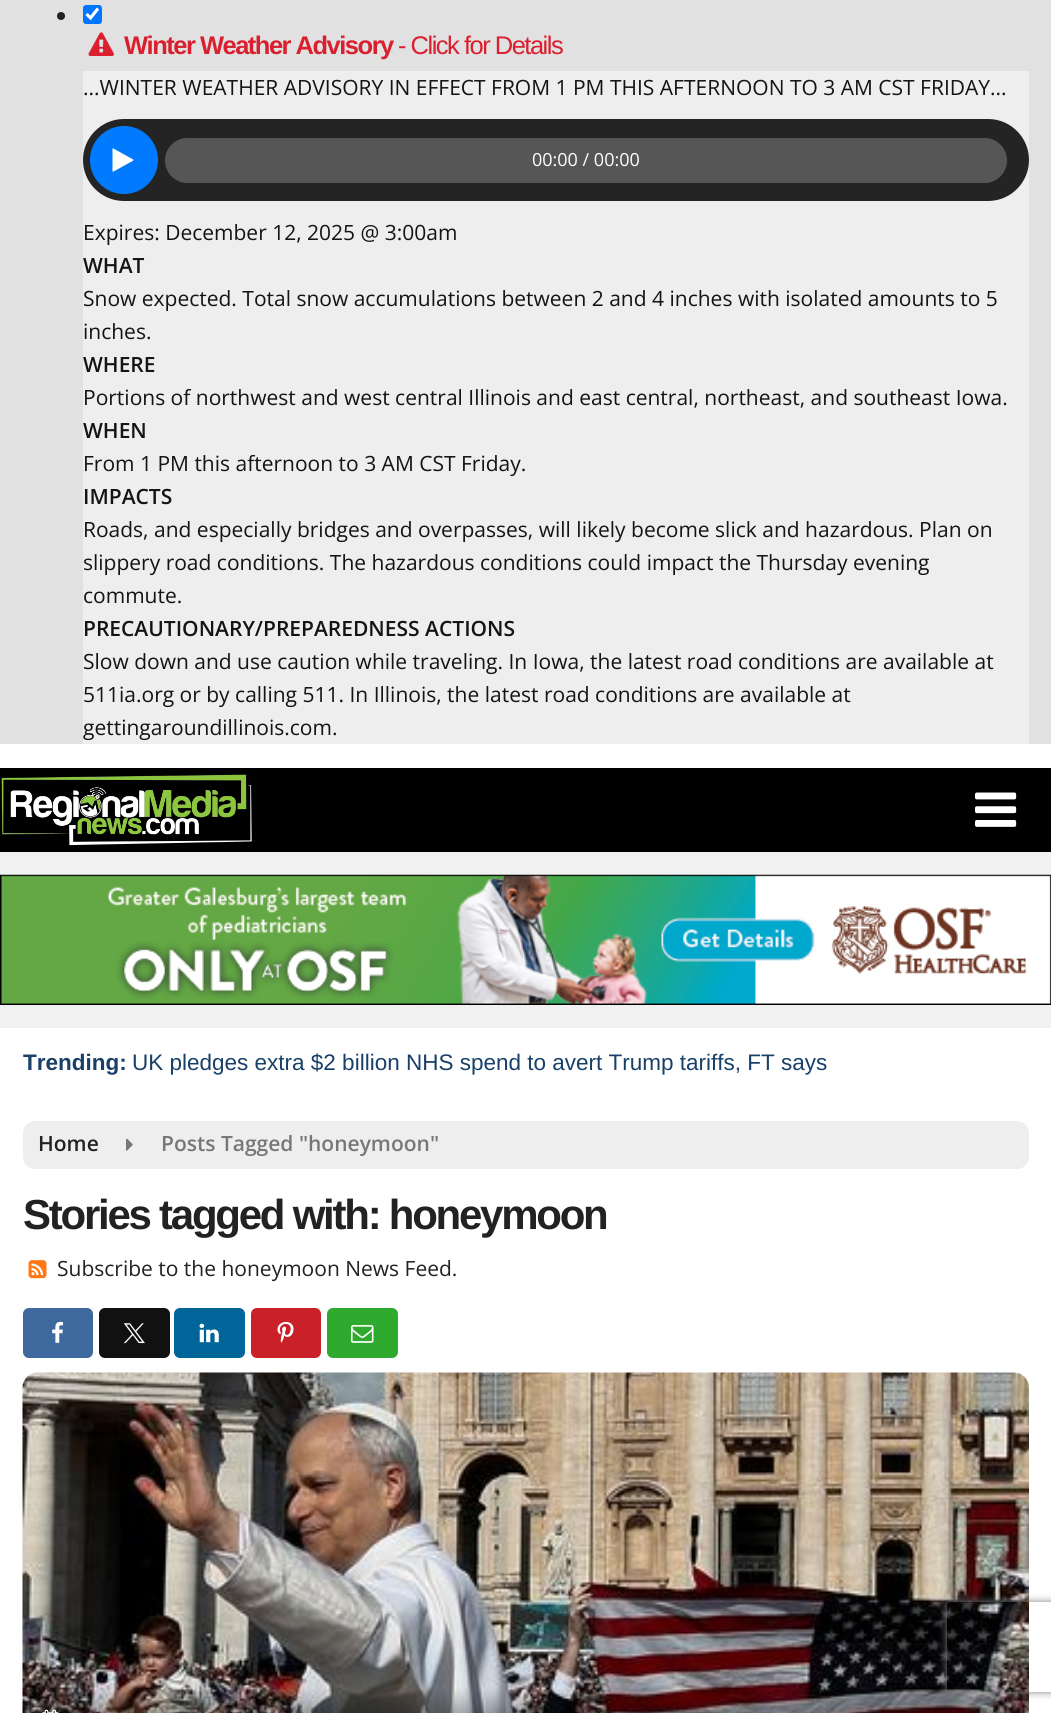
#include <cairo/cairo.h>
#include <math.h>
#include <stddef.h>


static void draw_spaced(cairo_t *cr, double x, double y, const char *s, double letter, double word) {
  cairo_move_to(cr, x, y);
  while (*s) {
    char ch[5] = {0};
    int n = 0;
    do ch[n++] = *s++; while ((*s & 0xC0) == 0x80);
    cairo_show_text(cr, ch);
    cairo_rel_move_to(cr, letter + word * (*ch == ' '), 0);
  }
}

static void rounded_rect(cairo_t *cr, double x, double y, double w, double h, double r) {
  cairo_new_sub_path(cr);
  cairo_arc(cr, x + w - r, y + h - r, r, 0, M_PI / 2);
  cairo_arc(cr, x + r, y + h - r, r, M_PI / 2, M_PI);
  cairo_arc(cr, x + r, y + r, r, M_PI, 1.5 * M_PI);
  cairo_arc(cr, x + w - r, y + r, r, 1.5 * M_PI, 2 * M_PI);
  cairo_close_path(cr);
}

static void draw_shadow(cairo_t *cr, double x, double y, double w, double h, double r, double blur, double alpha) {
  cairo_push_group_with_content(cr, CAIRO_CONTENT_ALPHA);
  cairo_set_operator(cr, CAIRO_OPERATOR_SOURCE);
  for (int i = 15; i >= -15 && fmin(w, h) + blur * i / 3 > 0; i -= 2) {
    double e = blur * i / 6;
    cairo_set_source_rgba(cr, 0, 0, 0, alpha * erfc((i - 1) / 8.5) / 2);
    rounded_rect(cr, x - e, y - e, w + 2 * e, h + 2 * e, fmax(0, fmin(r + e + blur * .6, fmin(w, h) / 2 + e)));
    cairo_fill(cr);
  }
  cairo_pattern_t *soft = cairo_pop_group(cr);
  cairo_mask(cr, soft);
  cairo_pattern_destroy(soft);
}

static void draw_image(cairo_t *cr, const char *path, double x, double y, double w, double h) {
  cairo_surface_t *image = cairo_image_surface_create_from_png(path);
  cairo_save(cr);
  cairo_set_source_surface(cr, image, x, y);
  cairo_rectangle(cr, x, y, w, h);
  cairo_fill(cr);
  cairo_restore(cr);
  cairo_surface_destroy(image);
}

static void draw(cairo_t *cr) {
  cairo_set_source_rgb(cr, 1, 1, 1);
  cairo_paint(cr);
  cairo_set_source_rgb(cr, 225 / 255.0, 225 / 255.0, 225 / 255.0);
  cairo_rectangle(cr, 0, 0, 1051, 744);
  cairo_fill(cr);
  cairo_set_source_rgb(cr, 34 / 255.0, 34 / 255.0, 34 / 255.0);
  cairo_arc(cr, 61, 16, 4, 0, 2 * M_PI);
  cairo_fill(cr);
  cairo_set_source_rgb(cr, 0, 117 / 255.0, 1);
  rounded_rect(cr, 83, 5, 19, 19, 3);
  cairo_fill(cr);
  cairo_new_path(cr);
  cairo_move_to(cr, 86.5, 14);
  cairo_line_to(cr, 90.5, 18);
  cairo_line_to(cr, 98, 8.5);
  cairo_set_source_rgb(cr, 1, 1, 1);
  cairo_set_line_width(cr, 3.1);
  cairo_stroke(cr);
  draw_image(cr, "images/1.png", 88, 32, 26, 24);
  cairo_set_source_rgb(cr, 238 / 255.0, 238 / 255.0, 238 / 255.0);
  cairo_rectangle(cr, 83, 71, 946, 673);
  cairo_fill(cr);
  cairo_set_source_rgb(cr, 36 / 255.0, 36 / 255.0, 36 / 255.0);
  rounded_rect(cr, 83, 119, 946, 82, 41);
  cairo_fill(cr);
  cairo_set_source_rgb(cr, 0, 123 / 255.0, 1);
  cairo_arc(cr, 124, 160, 34, 0, 2 * M_PI);
  cairo_fill(cr);
  draw_image(cr, "images/2.png", 112, 148, 22, 24);
  cairo_set_source_rgb(cr, 86 / 255.0, 86 / 255.0, 86 / 255.0);
  rounded_rect(cr, 165, 138, 842, 45, 22.5);
  cairo_fill(cr);
  cairo_set_source_rgb(cr, 0, 0, 0);
  cairo_rectangle(cr, 0, 768, 1051, 84);
  cairo_fill(cr);
  draw_image(cr, "images/3.png", 1, 774, 251, 72);
  draw_image(cr, "images/4.png", 975, 792, 42, 35);
  cairo_set_source_rgb(cr, 241 / 255.0, 241 / 255.0, 241 / 255.0);
  cairo_rectangle(cr, 0, 852, 1051, 176);
  cairo_fill(cr);
  draw_image(cr, "images/5.png", 0, 874, 1051, 131);
  cairo_set_source_rgb(cr, 238 / 255.0, 238 / 255.0, 238 / 255.0);
  rounded_rect(cr, 23, 1121, 1006, 48, 12);
  cairo_fill(cr);
  draw_image(cr, "images/6.png", 126, 1138, 7, 13);
  draw_image(cr, "images/7.png", 28, 1260, 19, 19);
  cairo_set_source_rgb(cr, 61 / 255.0, 105 / 255.0, 158 / 255.0);
  rounded_rect(cr, 23, 1308, 70, 50, 6);
  cairo_fill(cr);
  draw_image(cr, "images/8.png", 52, 1321, 12, 22);
  cairo_set_source_rgb(cr, 17 / 255.0, 17 / 255.0, 17 / 255.0);
  rounded_rect(cr, 99, 1308, 71, 50, 6);
  cairo_fill(cr);
  draw_image(cr, "images/9.png", 123, 1323, 22, 21);
  cairo_set_source_rgb(cr, 0, 102 / 255.0, 153 / 255.0);
  rounded_rect(cr, 174, 1308, 71, 50, 6);
  cairo_fill(cr);
  draw_image(cr, "images/10.png", 199, 1323, 20, 20);
  cairo_set_source_rgb(cr, 202 / 255.0, 32 / 255.0, 39 / 255.0);
  rounded_rect(cr, 251, 1308, 70, 50, 6);
  cairo_fill(cr);
  draw_image(cr, "images/11.png", 277, 1321, 17, 22);
  cairo_set_source_rgb(cr, 47 / 255.0, 169 / 255.0, 46 / 255.0);
  rounded_rect(cr, 327, 1308, 71, 50, 6);
  cairo_fill(cr);
  draw_image(cr, "images/12.png", 351, 1325, 23, 18);
  draw_image(cr, "images/13.png", 22, 1372, 1007, 341);
  draw_image(cr, "images/14.png", 42, 1709, 17, 4);
  cairo_save(cr);
  cairo_set_fill_rule(cr, CAIRO_FILL_RULE_EVEN_ODD);
  cairo_new_path(cr);
  cairo_move_to(cr, 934, 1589);
  cairo_line_to(cr, 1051, 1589);
  cairo_line_to(cr, 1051, 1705);
  cairo_line_to(cr, 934, 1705);
  cairo_close_path(cr);
  cairo_move_to(cr, 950, 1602);
  cairo_line_to(cr, 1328, 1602);
  cairo_curve_to(cr, 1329.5, 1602, 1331, 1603.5, 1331, 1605);
  cairo_line_to(cr, 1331, 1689);
  cairo_curve_to(cr, 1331, 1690.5, 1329.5, 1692, 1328, 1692);
  cairo_line_to(cr, 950, 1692);
  cairo_curve_to(cr, 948.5, 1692, 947, 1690.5, 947, 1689);
  cairo_line_to(cr, 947, 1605);
  cairo_curve_to(cr, 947, 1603.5, 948.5, 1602, 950, 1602);
  cairo_close_path(cr);
  cairo_clip(cr);
  cairo_set_source_rgb(cr, 128 / 255.0, 128 / 255.0, 128 / 255.0);
  draw_shadow(cr, 947, 1602, 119, 90, 3, 4, 1);
  cairo_restore(cr);
  cairo_select_font_face(cr, "Liberation Sans", CAIRO_FONT_SLANT_NORMAL, CAIRO_FONT_WEIGHT_BOLD);
  cairo_set_font_size(cr, 25.5);
  cairo_set_source_rgb(cr, 218 / 255.0, 31 / 255.0, 46 / 255.0);
  draw_spaced(cr, 124, 54, "Winter Weather Advisory", -1.5, 0);
  cairo_select_font_face(cr, "Liberation Sans", CAIRO_FONT_SLANT_NORMAL, CAIRO_FONT_WEIGHT_NORMAL);
  draw_spaced(cr, 398, 54, "- Click for Details", -1.5, 0);
  cairo_select_font_face(cr, "Open Sans", CAIRO_FONT_SLANT_NORMAL, CAIRO_FONT_WEIGHT_NORMAL);
  cairo_set_font_size(cr, 21);
  cairo_set_source_rgb(cr, 20 / 255.0, 20 / 255.0, 20 / 255.0);
  cairo_move_to(cr, 83, 95);
  cairo_show_text(cr, "...WINTER WEATHER ADVISORY IN EFFECT FROM 1 PM THIS AFTERNOON TO 3 AM CST FRIDAY...");
  cairo_set_font_size(cr, 18);
  cairo_set_source_rgb(cr, 1, 1, 1);
  cairo_move_to(cr, 532, 166);
  cairo_show_text(cr, "00:00 / 00:00");
  cairo_set_font_size(cr, 21);
  cairo_set_source_rgb(cr, 20 / 255.0, 20 / 255.0, 20 / 255.0);
  cairo_move_to(cr, 83, 240);
  cairo_show_text(cr, "Expires: December 12, 2025 @ 3:00am");
  cairo_select_font_face(cr, "Open Sans SemiBold", CAIRO_FONT_SLANT_NORMAL, CAIRO_FONT_WEIGHT_NORMAL);
  cairo_move_to(cr, 83, 273);
  cairo_show_text(cr, "WHAT");
  cairo_select_font_face(cr, "Open Sans", CAIRO_FONT_SLANT_NORMAL, CAIRO_FONT_WEIGHT_NORMAL);
  cairo_move_to(cr, 83, 306);
  cairo_show_text(cr, "Snow expected. Total snow accumulations between 2 and 4 inches with isolated amounts to 5");
  cairo_move_to(cr, 83, 339);
  cairo_show_text(cr, "inches.");
  cairo_select_font_face(cr, "Open Sans SemiBold", CAIRO_FONT_SLANT_NORMAL, CAIRO_FONT_WEIGHT_NORMAL);
  cairo_move_to(cr, 83, 372);
  cairo_show_text(cr, "WHERE");
  cairo_select_font_face(cr, "Open Sans", CAIRO_FONT_SLANT_NORMAL, CAIRO_FONT_WEIGHT_NORMAL);
  cairo_move_to(cr, 83, 405);
  cairo_show_text(cr, "Portions of northwest and west central Illinois and east central, northeast, and southeast Iowa.");
  cairo_select_font_face(cr, "Open Sans SemiBold", CAIRO_FONT_SLANT_NORMAL, CAIRO_FONT_WEIGHT_NORMAL);
  cairo_move_to(cr, 83, 438);
  cairo_show_text(cr, "WHEN");
  cairo_select_font_face(cr, "Open Sans", CAIRO_FONT_SLANT_NORMAL, CAIRO_FONT_WEIGHT_NORMAL);
  cairo_move_to(cr, 83, 471);
  cairo_show_text(cr, "From 1 PM this afternoon to 3 AM CST Friday.");
  cairo_select_font_face(cr, "Open Sans SemiBold", CAIRO_FONT_SLANT_NORMAL, CAIRO_FONT_WEIGHT_NORMAL);
  cairo_move_to(cr, 83, 504);
  cairo_show_text(cr, "IMPACTS");
  cairo_select_font_face(cr, "Open Sans", CAIRO_FONT_SLANT_NORMAL, CAIRO_FONT_WEIGHT_NORMAL);
  cairo_move_to(cr, 83, 537);
  cairo_show_text(cr, "Roads, and especially bridges and overpasses, will likely become slick and hazardous. Plan on");
  cairo_move_to(cr, 83, 570);
  cairo_show_text(cr, "slippery road conditions. The hazardous conditions could impact the Thursday evening");
  cairo_move_to(cr, 83, 603);
  cairo_show_text(cr, "commute.");
  cairo_select_font_face(cr, "Open Sans SemiBold", CAIRO_FONT_SLANT_NORMAL, CAIRO_FONT_WEIGHT_NORMAL);
  cairo_move_to(cr, 83, 636);
  cairo_show_text(cr, "PRECAUTIONARY/PREPAREDNESS ACTIONS");
  cairo_select_font_face(cr, "Open Sans", CAIRO_FONT_SLANT_NORMAL, CAIRO_FONT_WEIGHT_NORMAL);
  cairo_move_to(cr, 83, 669);
  cairo_show_text(cr, "Slow down and use caution while traveling. In Iowa, the latest road conditions are available at");
  cairo_move_to(cr, 83, 702);
  cairo_show_text(cr, "511ia.org or by calling 511. In Illinois, the latest road conditions are available at");
  cairo_move_to(cr, 83, 735);
  cairo_show_text(cr, "gettingaroundillinois.com.");
  cairo_select_font_face(cr, "Liberation Sans", CAIRO_FONT_SLANT_NORMAL, CAIRO_FONT_WEIGHT_BOLD);
  cairo_set_font_size(cr, 22.5);
  cairo_set_source_rgb(cr, 24 / 255.0, 64 / 255.0, 104 / 255.0);
  cairo_move_to(cr, 23, 1070);
  cairo_show_text(cr, "Trending:");
  cairo_select_font_face(cr, "Liberation Sans", CAIRO_FONT_SLANT_NORMAL, CAIRO_FONT_WEIGHT_NORMAL);
  cairo_move_to(cr, 132, 1070);
  cairo_show_text(cr, "UK pledges extra $2 billion NHS spend to avert Trump tariffs, FT says");
  cairo_select_font_face(cr, "Open Sans SemiBold", CAIRO_FONT_SLANT_NORMAL, CAIRO_FONT_WEIGHT_NORMAL);
  cairo_set_font_size(cr, 21);
  cairo_set_source_rgb(cr, 34 / 255.0, 34 / 255.0, 34 / 255.0);
  cairo_move_to(cr, 38, 1151);
  cairo_show_text(cr, "Home");
  cairo_set_source_rgb(cr, 119 / 255.0, 119 / 255.0, 119 / 255.0);
  cairo_move_to(cr, 161, 1151);
  cairo_show_text(cr, "Posts Tagged \"honeymoon\"");
  cairo_select_font_face(cr, "Liberation Sans", CAIRO_FONT_SLANT_NORMAL, CAIRO_FONT_WEIGHT_BOLD);
  cairo_set_font_size(cr, 42);
  cairo_set_source_rgb(cr, 34 / 255.0, 34 / 255.0, 34 / 255.0);
  draw_spaced(cr, 23, 1229, "Stories tagged with: honeymoon", -2.25, 0);
  cairo_select_font_face(cr, "Open Sans", CAIRO_FONT_SLANT_NORMAL, CAIRO_FONT_WEIGHT_NORMAL);
  cairo_set_font_size(cr, 21);
  cairo_move_to(cr, 57, 1276);
  cairo_show_text(cr, "Subscribe to the honeymoon News Feed.");
}

int main(void) {
  cairo_surface_t *surface = cairo_image_surface_create(CAIRO_FORMAT_RGB24, 1051, 1713);
  cairo_t *cr = cairo_create(surface);
  cairo_font_options_t *options = cairo_font_options_create();
  cairo_font_options_set_hint_metrics(options, CAIRO_HINT_METRICS_OFF);
  cairo_font_options_set_hint_style(options, CAIRO_HINT_STYLE_NONE);
  cairo_set_font_options(cr, options);
  cairo_set_miter_limit(cr, 4);
  draw(cr);
  cairo_surface_write_to_png(surface, "out.png");
  cairo_font_options_destroy(options);
  cairo_destroy(cr);
  cairo_surface_destroy(surface);
  return 0;
}
